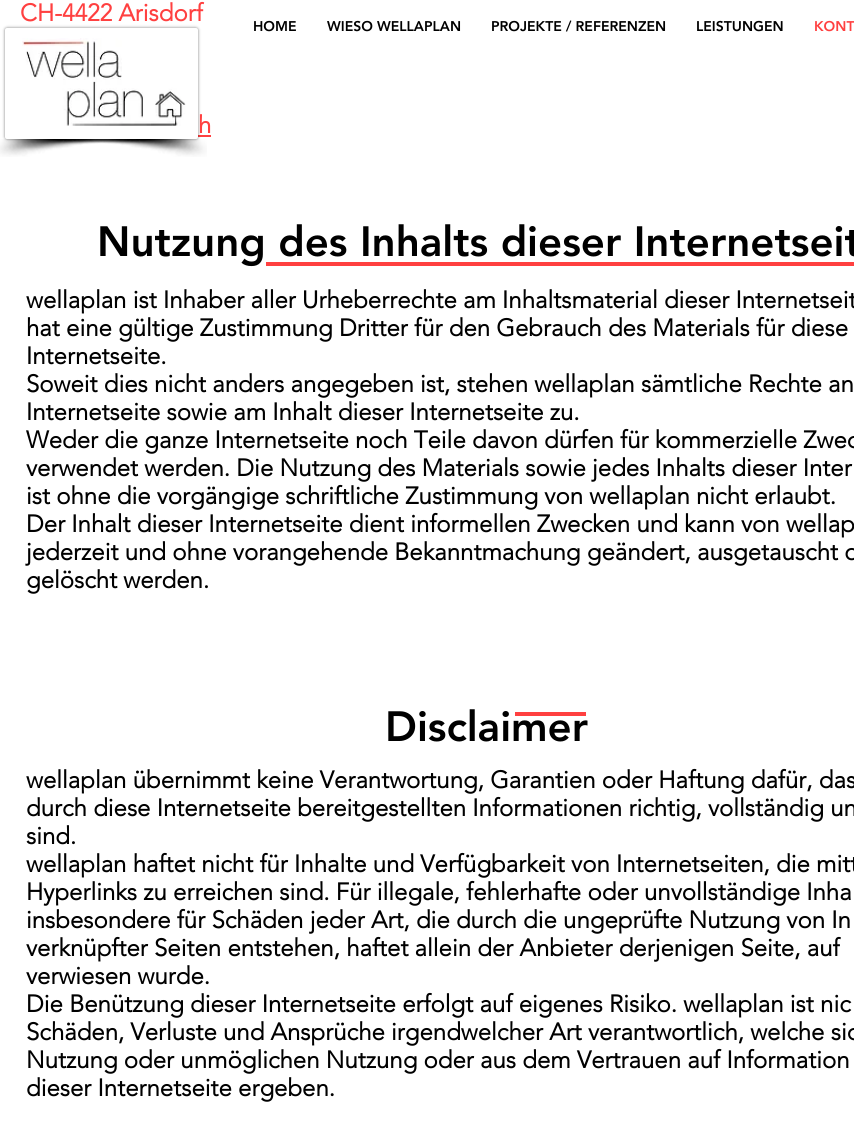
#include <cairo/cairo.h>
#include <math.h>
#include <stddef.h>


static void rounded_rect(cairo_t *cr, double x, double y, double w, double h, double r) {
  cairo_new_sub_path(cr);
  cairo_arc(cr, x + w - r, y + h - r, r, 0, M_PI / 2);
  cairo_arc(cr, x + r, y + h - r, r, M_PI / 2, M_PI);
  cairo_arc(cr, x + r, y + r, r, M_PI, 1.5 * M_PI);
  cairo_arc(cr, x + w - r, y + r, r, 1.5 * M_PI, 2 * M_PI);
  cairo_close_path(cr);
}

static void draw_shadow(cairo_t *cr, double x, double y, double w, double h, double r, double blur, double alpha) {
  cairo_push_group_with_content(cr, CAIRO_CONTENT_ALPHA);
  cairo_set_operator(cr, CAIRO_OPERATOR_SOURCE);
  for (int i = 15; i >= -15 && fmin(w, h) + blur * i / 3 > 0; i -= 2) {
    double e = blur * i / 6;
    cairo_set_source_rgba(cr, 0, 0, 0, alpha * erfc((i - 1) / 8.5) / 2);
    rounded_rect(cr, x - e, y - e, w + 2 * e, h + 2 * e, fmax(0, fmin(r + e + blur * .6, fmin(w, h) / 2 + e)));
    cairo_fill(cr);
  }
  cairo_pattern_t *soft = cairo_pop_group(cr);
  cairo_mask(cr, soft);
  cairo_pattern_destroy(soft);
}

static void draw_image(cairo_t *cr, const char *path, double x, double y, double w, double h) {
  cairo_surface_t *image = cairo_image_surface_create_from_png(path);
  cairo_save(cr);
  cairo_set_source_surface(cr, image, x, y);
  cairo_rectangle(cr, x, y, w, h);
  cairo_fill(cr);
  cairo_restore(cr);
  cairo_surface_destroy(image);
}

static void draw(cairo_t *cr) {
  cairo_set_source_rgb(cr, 1, 1, 1);
  cairo_paint(cr);
  cairo_set_source_rgb(cr, 1, 64 / 255.0, 64 / 255.0);
  cairo_rectangle(cr, 198, 135, 13, 2);
  cairo_fill(cr);
  cairo_set_source_rgb(cr, 0, 0, 0);
  draw_shadow(cr, 5, 28, 193, 111, 2, 1.5, 0.5);
  cairo_set_source_rgb(cr, 1, 1, 1);
  rounded_rect(cr, 6, 29, 191, 109, 1);
  cairo_fill_preserve(cr);
  cairo_stroke(cr);
  draw_image(cr, "images/1.png", 22, 38, 164, 88);
  draw_image(cr, "images/2.png", 0, 139, 140, 18);
  draw_image(cr, "images/3.png", 78, 139, 129, 18);
  cairo_select_font_face(cr, "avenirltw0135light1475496", CAIRO_FONT_SLANT_NORMAL, CAIRO_FONT_WEIGHT_BOLD);
  cairo_set_font_size(cr, 24);
  cairo_set_source_rgb(cr, 1, 64 / 255.0, 64 / 255.0);
  cairo_move_to(cr, 20, 21);
  cairo_show_text(cr, "CH-4422 Arisdorf");
  cairo_move_to(cr, 198, 133);
  cairo_show_text(cr, "h");
  cairo_select_font_face(cr, "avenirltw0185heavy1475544 Black", CAIRO_FONT_SLANT_NORMAL, CAIRO_FONT_WEIGHT_NORMAL);
  cairo_set_font_size(cr, 42);
  cairo_set_source_rgb(cr, 0, 0, 0);
  cairo_move_to(cr, 97, 256);
  cairo_show_text(cr, "Nutzung des Inhalts dieser Internetseit");
  cairo_set_source_rgb(cr, 1, 64 / 255.0, 64 / 255.0);
  cairo_rectangle(cr, 266, 262, 588, 4);
  cairo_fill(cr);
  cairo_select_font_face(cr, "avenirltw0135light1475496", CAIRO_FONT_SLANT_NORMAL, CAIRO_FONT_WEIGHT_BOLD);
  cairo_set_font_size(cr, 24);
  cairo_set_source_rgb(cr, 0, 0, 0);
  cairo_move_to(cr, 26, 308);
  cairo_show_text(cr, "wellaplan ist Inhaber aller Urheberrechte am Inhaltsmaterial dieser Internetseit");
  cairo_move_to(cr, 26, 336);
  cairo_show_text(cr, "hat eine gültige Zustimmung Dritter für den Gebrauch des Materials für diese");
  cairo_move_to(cr, 26, 364);
  cairo_show_text(cr, "Internetseite.");
  cairo_move_to(cr, 26, 392);
  cairo_show_text(cr, "Soweit dies nicht anders angegeben ist, stehen wellaplan sämtliche Rechte an");
  cairo_move_to(cr, 26, 420);
  cairo_show_text(cr, "Internetseite sowie am Inhalt dieser Internetseite zu.");
  cairo_move_to(cr, 26, 448);
  cairo_show_text(cr, "Weder die ganze Internetseite noch Teile davon dürfen für kommerzielle Zwec");
  cairo_move_to(cr, 26, 476);
  cairo_show_text(cr, "verwendet werden. Die Nutzung des Materials sowie jedes Inhalts dieser Inter");
  cairo_move_to(cr, 26, 504);
  cairo_show_text(cr, "ist ohne die vorgängige schriftliche Zustimmung von wellaplan nicht erlaubt.");
  cairo_move_to(cr, 26, 532);
  cairo_show_text(cr, "Der Inhalt dieser Internetseite dient informellen Zwecken und kann von wellap");
  cairo_move_to(cr, 26, 560);
  cairo_show_text(cr, "jederzeit und ohne vorangehende Bekanntmachung geändert, ausgetauscht o");
  cairo_move_to(cr, 26, 588);
  cairo_show_text(cr, "gelöscht werden.");
  cairo_select_font_face(cr, "avenirltw0185heavy1475544 Black", CAIRO_FONT_SLANT_NORMAL, CAIRO_FONT_WEIGHT_NORMAL);
  cairo_set_font_size(cr, 42);
  cairo_move_to(cr, 385, 741);
  cairo_show_text(cr, "Disclaimer");
  cairo_set_source_rgb(cr, 1, 64 / 255.0, 64 / 255.0);
  cairo_rectangle(cr, 515, 712, 71, 4);
  cairo_fill(cr);
  cairo_select_font_face(cr, "avenirltw0135light1475496", CAIRO_FONT_SLANT_NORMAL, CAIRO_FONT_WEIGHT_BOLD);
  cairo_set_font_size(cr, 24);
  cairo_set_source_rgb(cr, 0, 0, 0);
  cairo_move_to(cr, 26, 788);
  cairo_show_text(cr, "wellaplan übernimmt keine Verantwortung, Garantien oder Haftung dafür, das");
  cairo_move_to(cr, 26, 816);
  cairo_show_text(cr, "durch diese Internetseite bereitgestellten Informationen richtig, vollständig un");
  cairo_move_to(cr, 26, 844);
  cairo_show_text(cr, "sind.");
  cairo_move_to(cr, 26, 872);
  cairo_show_text(cr, "wellaplan haftet nicht für Inhalte und Verfügbarkeit von Internetseiten, die mitt");
  cairo_move_to(cr, 26, 900);
  cairo_show_text(cr, "Hyperlinks zu erreichen sind. Für illegale, fehlerhafte oder unvollständige Inha");
  cairo_move_to(cr, 26, 928);
  cairo_show_text(cr, "insbesondere für Schäden jeder Art, die durch die ungeprüfte Nutzung von In");
  cairo_move_to(cr, 26, 956);
  cairo_show_text(cr, "verknüpfter Seiten entstehen, haftet allein der Anbieter derjenigen Seite, auf");
  cairo_move_to(cr, 26, 984);
  cairo_show_text(cr, "verwiesen wurde.");
  cairo_move_to(cr, 26, 1012);
  cairo_show_text(cr, "Die Benützung dieser Internetseite erfolgt auf eigenes Risiko. wellaplan ist nic");
  cairo_move_to(cr, 26, 1040);
  cairo_show_text(cr, "Schäden, Verluste und Ansprüche irgendwelcher Art verantwortlich, welche sic");
  cairo_move_to(cr, 26, 1068);
  cairo_show_text(cr, "Nutzung oder unmöglichen Nutzung oder aus dem Vertrauen auf Information");
  cairo_move_to(cr, 26, 1096);
  cairo_show_text(cr, "dieser Internetseite ergeben.");
  cairo_select_font_face(cr, "avenirltw0185heavy1475544 Black", CAIRO_FONT_SLANT_NORMAL, CAIRO_FONT_WEIGHT_NORMAL);
  cairo_set_font_size(cr, 14);
  cairo_move_to(cr, 253, 31);
  cairo_show_text(cr, "HOME");
  cairo_move_to(cr, 327, 31);
  cairo_show_text(cr, "WIESO WELLAPLAN");
  cairo_move_to(cr, 491, 31);
  cairo_show_text(cr, "PROJEKTE / REFERENZEN");
  cairo_move_to(cr, 696, 31);
  cairo_show_text(cr, "LEISTUNGEN");
  cairo_set_source_rgb(cr, 1, 64 / 255.0, 64 / 255.0);
  cairo_move_to(cr, 814, 31);
  cairo_show_text(cr, "KONT");
}

int main(void) {
  cairo_surface_t *surface = cairo_image_surface_create(CAIRO_FORMAT_RGB24, 854, 1121);
  cairo_t *cr = cairo_create(surface);
  cairo_font_options_t *options = cairo_font_options_create();
  cairo_font_options_set_hint_metrics(options, CAIRO_HINT_METRICS_OFF);
  cairo_font_options_set_hint_style(options, CAIRO_HINT_STYLE_NONE);
  cairo_set_font_options(cr, options);
  cairo_set_miter_limit(cr, 4);
  draw(cr);
  cairo_surface_write_to_png(surface, "out.png");
  cairo_font_options_destroy(options);
  cairo_destroy(cr);
  cairo_surface_destroy(surface);
  return 0;
}
